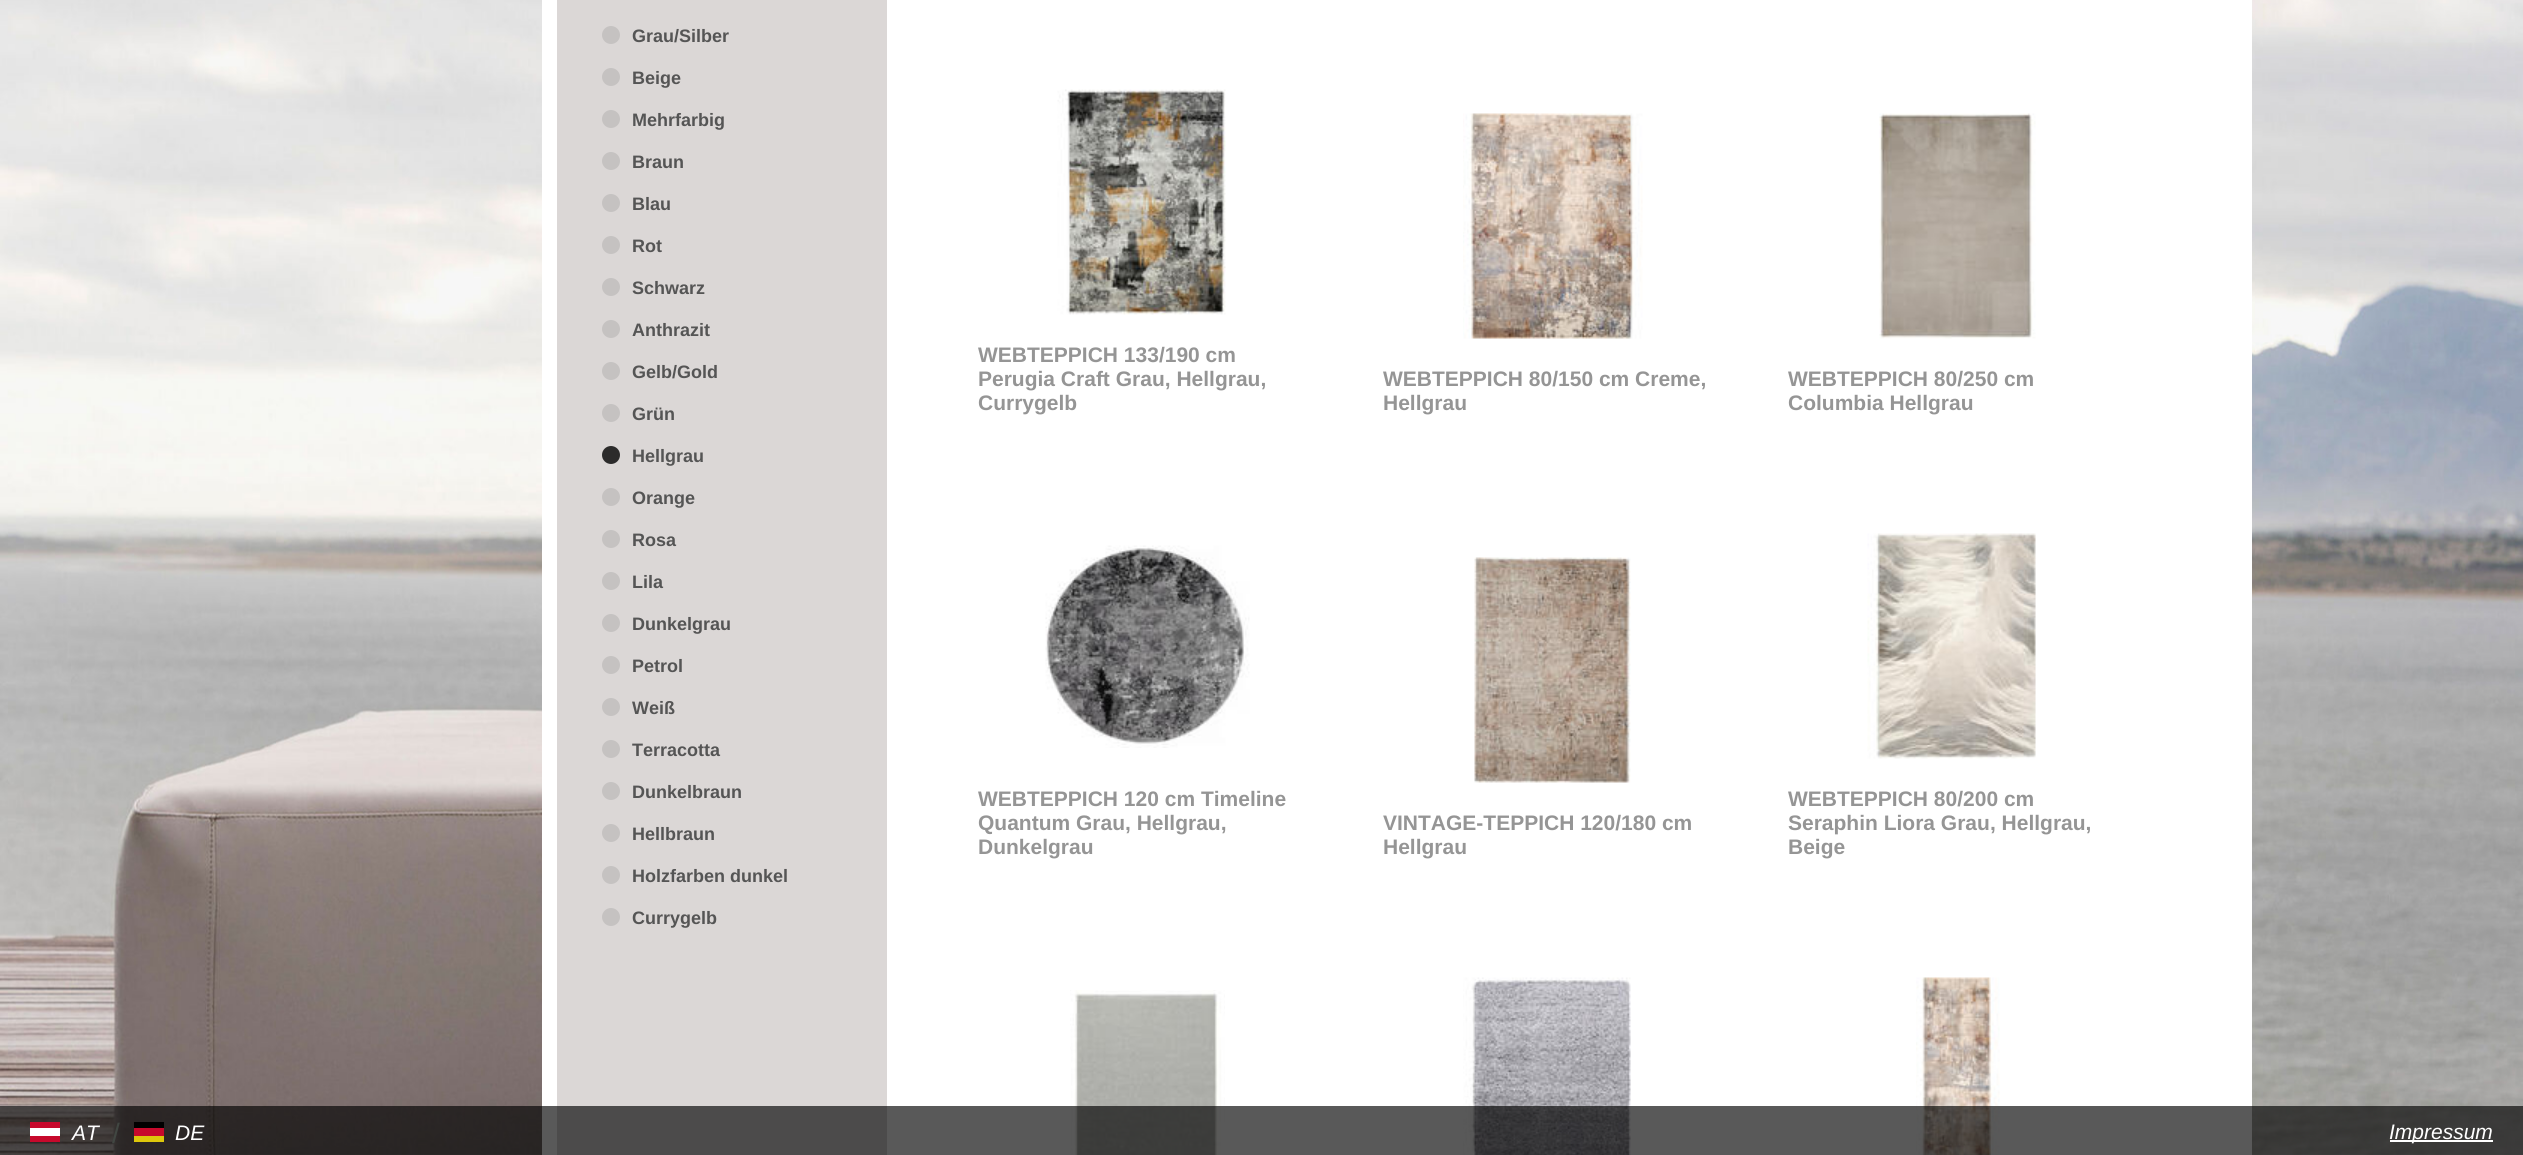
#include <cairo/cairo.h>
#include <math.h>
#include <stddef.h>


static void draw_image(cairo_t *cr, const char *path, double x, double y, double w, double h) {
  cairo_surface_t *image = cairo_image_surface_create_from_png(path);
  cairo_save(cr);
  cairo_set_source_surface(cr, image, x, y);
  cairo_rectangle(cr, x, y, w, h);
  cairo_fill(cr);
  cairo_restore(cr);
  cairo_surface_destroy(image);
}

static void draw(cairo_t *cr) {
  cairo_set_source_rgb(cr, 1, 1, 1);
  cairo_paint(cr);
  draw_image(cr, "images/1.png", 0, 0, 2523, 1155);
  cairo_set_source_rgb(cr, 1, 1, 1);
  cairo_rectangle(cr, 902, 0, 1350, 1155);
  cairo_fill(cr);
  cairo_set_source_rgb(cr, 219 / 255.0, 215 / 255.0, 214 / 255.0);
  cairo_rectangle(cr, 549.5, -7.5, 345, 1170);
  cairo_fill_preserve(cr);
  cairo_set_source_rgb(cr, 1, 1, 1);
  cairo_set_line_width(cr, 15);
  cairo_stroke(cr);
  cairo_set_source_rgb(cr, 197 / 255.0, 194 / 255.0, 193 / 255.0);
  cairo_arc(cr, 611, 35, 9, 0, 2 * M_PI);
  cairo_fill(cr);
  cairo_arc(cr, 611, 77, 9, 0, 2 * M_PI);
  cairo_fill(cr);
  cairo_arc(cr, 611, 119, 9, 0, 2 * M_PI);
  cairo_fill(cr);
  cairo_arc(cr, 611, 161, 9, 0, 2 * M_PI);
  cairo_fill(cr);
  cairo_arc(cr, 611, 203, 9, 0, 2 * M_PI);
  cairo_fill(cr);
  cairo_arc(cr, 611, 245, 9, 0, 2 * M_PI);
  cairo_fill(cr);
  cairo_arc(cr, 611, 287, 9, 0, 2 * M_PI);
  cairo_fill(cr);
  cairo_arc(cr, 611, 329, 9, 0, 2 * M_PI);
  cairo_fill(cr);
  cairo_arc(cr, 611, 371, 9, 0, 2 * M_PI);
  cairo_fill(cr);
  cairo_arc(cr, 611, 413, 9, 0, 2 * M_PI);
  cairo_fill(cr);
  cairo_set_source_rgb(cr, 44 / 255.0, 43 / 255.0, 43 / 255.0);
  cairo_arc(cr, 611, 455, 9, 0, 2 * M_PI);
  cairo_fill(cr);
  cairo_set_source_rgb(cr, 197 / 255.0, 194 / 255.0, 193 / 255.0);
  cairo_arc(cr, 611, 497, 9, 0, 2 * M_PI);
  cairo_fill(cr);
  cairo_arc(cr, 611, 539, 9, 0, 2 * M_PI);
  cairo_fill(cr);
  cairo_arc(cr, 611, 581, 9, 0, 2 * M_PI);
  cairo_fill(cr);
  cairo_arc(cr, 611, 623, 9, 0, 2 * M_PI);
  cairo_fill(cr);
  cairo_arc(cr, 611, 665, 9, 0, 2 * M_PI);
  cairo_fill(cr);
  cairo_arc(cr, 611, 707, 9, 0, 2 * M_PI);
  cairo_fill(cr);
  cairo_arc(cr, 611, 749, 9, 0, 2 * M_PI);
  cairo_fill(cr);
  cairo_arc(cr, 611, 791, 9, 0, 2 * M_PI);
  cairo_fill(cr);
  cairo_arc(cr, 611, 833, 9, 0, 2 * M_PI);
  cairo_fill(cr);
  cairo_arc(cr, 611, 875, 9, 0, 2 * M_PI);
  cairo_fill(cr);
  cairo_arc(cr, 611, 917, 9, 0, 2 * M_PI);
  cairo_fill(cr);
  draw_image(cr, "images/2.png", 1057, 89, 169, 226);
  draw_image(cr, "images/3.png", 1463, 113, 180, 226);
  draw_image(cr, "images/4.png", 1879, 113, 157, 226);
  draw_image(cr, "images/5.png", 1045, 545, 205, 203);
  draw_image(cr, "images/6.png", 1474, 557, 157, 226);
  draw_image(cr, "images/7.png", 1867, 533, 169, 226);
  draw_image(cr, "images/8.png", 1070, 990, 155, 165);
  draw_image(cr, "images/9.png", 1463, 977, 168, 178);
  draw_image(cr, "images/10.png", 1916, 977, 84, 178);
  cairo_set_source_rgba(cr, 0, 0, 0, 0.65);
  cairo_rectangle(cr, 0, 1106, 2523, 49);
  cairo_fill(cr);
  cairo_set_source_rgb(cr, 199 / 255.0, 9 / 255.0, 44 / 255.0);
  cairo_rectangle(cr, 30, 1122, 30, 6);
  cairo_fill(cr);
  cairo_set_source_rgb(cr, 1, 1, 1);
  cairo_rectangle(cr, 30, 1128, 30, 8);
  cairo_fill(cr);
  cairo_set_source_rgb(cr, 199 / 255.0, 9 / 255.0, 44 / 255.0);
  cairo_rectangle(cr, 30, 1136, 30, 6);
  cairo_fill(cr);
  cairo_set_source_rgb(cr, 0, 0, 0);
  cairo_rectangle(cr, 134, 1122, 30, 6);
  cairo_fill(cr);
  cairo_set_source_rgb(cr, 199 / 255.0, 9 / 255.0, 44 / 255.0);
  cairo_rectangle(cr, 134, 1128, 30, 8);
  cairo_fill(cr);
  cairo_set_source_rgb(cr, 221 / 255.0, 199 / 255.0, 11 / 255.0);
  cairo_rectangle(cr, 134, 1136, 30, 6);
  cairo_fill(cr);
  cairo_set_source_rgb(cr, 1, 1, 1);
  cairo_rectangle(cr, 2390, 1140, 103, 2);
  cairo_fill(cr);
  cairo_select_font_face(cr, "Liberation Sans", CAIRO_FONT_SLANT_NORMAL, CAIRO_FONT_WEIGHT_BOLD);
  cairo_set_font_size(cr, 18);
  cairo_set_source_rgb(cr, 85 / 255.0, 85 / 255.0, 85 / 255.0);
  cairo_move_to(cr, 632, 42);
  cairo_show_text(cr, "Grau/Silber");
  cairo_move_to(cr, 632, 84);
  cairo_show_text(cr, "Beige");
  cairo_move_to(cr, 632, 126);
  cairo_show_text(cr, "Mehrfarbig");
  cairo_move_to(cr, 632, 168);
  cairo_show_text(cr, "Braun");
  cairo_move_to(cr, 632, 210);
  cairo_show_text(cr, "Blau");
  cairo_move_to(cr, 632, 252);
  cairo_show_text(cr, "Rot");
  cairo_move_to(cr, 632, 294);
  cairo_show_text(cr, "Schwarz");
  cairo_move_to(cr, 632, 336);
  cairo_show_text(cr, "Anthrazit");
  cairo_move_to(cr, 632, 378);
  cairo_show_text(cr, "Gelb/Gold");
  cairo_move_to(cr, 632, 420);
  cairo_show_text(cr, "Grün");
  cairo_move_to(cr, 632, 462);
  cairo_show_text(cr, "Hellgrau");
  cairo_move_to(cr, 632, 504);
  cairo_show_text(cr, "Orange");
  cairo_move_to(cr, 632, 546);
  cairo_show_text(cr, "Rosa");
  cairo_move_to(cr, 632, 588);
  cairo_show_text(cr, "Lila");
  cairo_move_to(cr, 632, 630);
  cairo_show_text(cr, "Dunkelgrau");
  cairo_move_to(cr, 632, 672);
  cairo_show_text(cr, "Petrol");
  cairo_move_to(cr, 632, 714);
  cairo_show_text(cr, "Weiß");
  cairo_move_to(cr, 632, 756);
  cairo_show_text(cr, "Terracotta");
  cairo_move_to(cr, 632, 798);
  cairo_show_text(cr, "Dunkelbraun");
  cairo_move_to(cr, 632, 840);
  cairo_show_text(cr, "Hellbraun");
  cairo_move_to(cr, 632, 882);
  cairo_show_text(cr, "Holzfarben dunkel");
  cairo_move_to(cr, 632, 924);
  cairo_show_text(cr, "Currygelb");
  cairo_set_font_size(cr, 21);
  cairo_set_source_rgb(cr, 149 / 255.0, 149 / 255.0, 149 / 255.0);
  cairo_move_to(cr, 978, 362);
  cairo_show_text(cr, "WEBTEPPICH 133/190 cm");
  cairo_move_to(cr, 978, 386);
  cairo_show_text(cr, "Perugia Craft Grau, Hellgrau,");
  cairo_move_to(cr, 978, 410);
  cairo_show_text(cr, "Currygelb");
  cairo_move_to(cr, 1383, 386);
  cairo_show_text(cr, "WEBTEPPICH 80/150 cm Creme,");
  cairo_move_to(cr, 1383, 410);
  cairo_show_text(cr, "Hellgrau");
  cairo_move_to(cr, 1788, 386);
  cairo_show_text(cr, "WEBTEPPICH 80/250 cm");
  cairo_move_to(cr, 1788, 410);
  cairo_show_text(cr, "Columbia Hellgrau");
  cairo_move_to(cr, 978, 806);
  cairo_show_text(cr, "WEBTEPPICH 120 cm Timeline");
  cairo_move_to(cr, 978, 830);
  cairo_show_text(cr, "Quantum Grau, Hellgrau,");
  cairo_move_to(cr, 978, 854);
  cairo_show_text(cr, "Dunkelgrau");
  cairo_move_to(cr, 1383, 830);
  cairo_show_text(cr, "VINTAGE-TEPPICH 120/180 cm");
  cairo_move_to(cr, 1383, 854);
  cairo_show_text(cr, "Hellgrau");
  cairo_move_to(cr, 1788, 806);
  cairo_show_text(cr, "WEBTEPPICH 80/200 cm");
  cairo_move_to(cr, 1788, 830);
  cairo_show_text(cr, "Seraphin Liora Grau, Hellgrau,");
  cairo_move_to(cr, 1788, 854);
  cairo_show_text(cr, "Beige");
  cairo_select_font_face(cr, "Liberation Sans", CAIRO_FONT_SLANT_ITALIC, CAIRO_FONT_WEIGHT_NORMAL);
  cairo_set_source_rgb(cr, 1, 1, 1);
  cairo_move_to(cr, 72, 1140);
  cairo_show_text(cr, "AT");
  cairo_select_font_face(cr, "Liberation Sans", CAIRO_FONT_SLANT_NORMAL, CAIRO_FONT_WEIGHT_NORMAL);
  cairo_set_font_size(cr, 28);
  cairo_set_source_rgb(cr, 65 / 255.0, 71 / 255.0, 66 / 255.0);
  cairo_move_to(cr, 112, 1143);
  cairo_show_text(cr, "/");
  cairo_select_font_face(cr, "Liberation Sans", CAIRO_FONT_SLANT_ITALIC, CAIRO_FONT_WEIGHT_NORMAL);
  cairo_set_font_size(cr, 21);
  cairo_set_source_rgb(cr, 1, 1, 1);
  cairo_move_to(cr, 175, 1140);
  cairo_show_text(cr, "DE");
  cairo_move_to(cr, 2389, 1139);
  cairo_show_text(cr, "Impressum");
}

int main(void) {
  cairo_surface_t *surface = cairo_image_surface_create(CAIRO_FORMAT_RGB24, 2523, 1155);
  cairo_t *cr = cairo_create(surface);
  cairo_font_options_t *options = cairo_font_options_create();
  cairo_font_options_set_hint_metrics(options, CAIRO_HINT_METRICS_OFF);
  cairo_font_options_set_hint_style(options, CAIRO_HINT_STYLE_NONE);
  cairo_set_font_options(cr, options);
  cairo_set_miter_limit(cr, 4);
  draw(cr);
  cairo_surface_write_to_png(surface, "out.png");
  cairo_font_options_destroy(options);
  cairo_destroy(cr);
  cairo_surface_destroy(surface);
  return 0;
}
